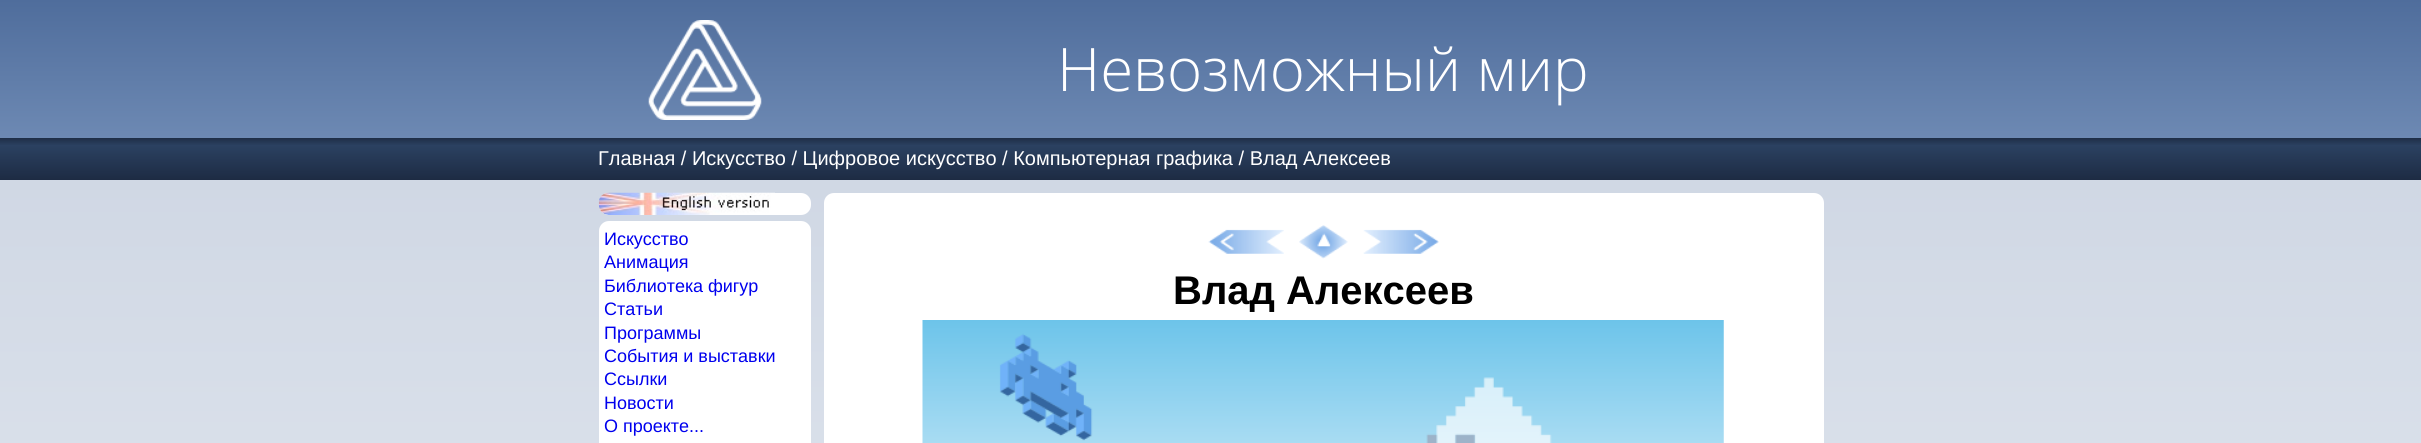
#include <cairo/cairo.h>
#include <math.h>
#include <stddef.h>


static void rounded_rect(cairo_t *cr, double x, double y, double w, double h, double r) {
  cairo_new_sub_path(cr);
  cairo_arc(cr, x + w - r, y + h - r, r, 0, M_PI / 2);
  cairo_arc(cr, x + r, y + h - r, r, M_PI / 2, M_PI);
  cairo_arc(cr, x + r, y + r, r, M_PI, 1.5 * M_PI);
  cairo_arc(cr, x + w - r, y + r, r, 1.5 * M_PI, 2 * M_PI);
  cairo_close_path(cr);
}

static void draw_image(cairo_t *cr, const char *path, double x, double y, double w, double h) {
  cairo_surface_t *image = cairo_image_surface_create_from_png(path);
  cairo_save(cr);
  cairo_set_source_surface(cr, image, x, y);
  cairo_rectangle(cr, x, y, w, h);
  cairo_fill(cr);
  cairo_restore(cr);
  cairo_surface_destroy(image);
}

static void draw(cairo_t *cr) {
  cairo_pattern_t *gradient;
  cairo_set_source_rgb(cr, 1, 1, 1);
  cairo_paint(cr);
  gradient = cairo_pattern_create_linear(1211, 0, 1211, 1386);
  cairo_pattern_add_color_stop_rgba(gradient, 0.09, 206 / 255.0, 214 / 255.0, 227 / 255.0, 1);
  cairo_pattern_add_color_stop_rgba(gradient, 0.72, 235 / 255.0, 239 / 255.0, 245 / 255.0, 1);
  cairo_set_source(cr, gradient);
  cairo_pattern_destroy(gradient);
  cairo_rectangle(cr, 0, 180, 2421, 263);
  cairo_fill(cr);
  gradient = cairo_pattern_create_linear(1211, 0, 1211, 138);
  cairo_pattern_add_color_stop_rgba(gradient, 0, 79 / 255.0, 109 / 255.0, 156 / 255.0, 1);
  cairo_pattern_add_color_stop_rgba(gradient, 1, 109 / 255.0, 137 / 255.0, 179 / 255.0, 1);
  cairo_set_source(cr, gradient);
  cairo_pattern_destroy(gradient);
  cairo_rectangle(cr, 0, 0, 2421, 138);
  cairo_fill(cr);
  draw_image(cr, "images/1.png", 648, 20, 114, 100);
  gradient = cairo_pattern_create_linear(1211, 137, 1211, 180);
  cairo_pattern_add_color_stop_rgba(gradient, 0, 29 / 255.0, 43 / 255.0, 67 / 255.0, 1);
  cairo_pattern_add_color_stop_rgba(gradient, 0.2, 43 / 255.0, 65 / 255.0, 97 / 255.0, 1);
  cairo_pattern_add_color_stop_rgba(gradient, 1, 29 / 255.0, 43 / 255.0, 67 / 255.0, 1);
  cairo_set_source(cr, gradient);
  cairo_pattern_destroy(gradient);
  cairo_rectangle(cr, 0, 138, 2421, 42);
  cairo_fill(cr);
  cairo_set_source_rgb(cr, 1, 1, 1);
  rounded_rect(cr, 599, 193, 212, 22, 10);
  cairo_fill(cr);
  draw_image(cr, "images/2.png", 598, 192, 177, 23);
  rounded_rect(cr, 599, 221, 212, 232, 10);
  cairo_fill(cr);
  rounded_rect(cr, 824, 193, 1000, 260, 10);
  cairo_fill(cr);
  draw_image(cr, "images/3.png", 1208, 229, 76, 25);
  draw_image(cr, "images/4.png", 1299, 225, 49, 34);
  draw_image(cr, "images/5.png", 1363, 229, 76, 25);
  draw_image(cr, "images/6.png", 922, 320, 802, 123);
  cairo_select_font_face(cr, "Open Sans Light", CAIRO_FONT_SLANT_NORMAL, CAIRO_FONT_WEIGHT_NORMAL);
  cairo_set_font_size(cr, 60);
  cairo_move_to(cr, 1057, 91);
  cairo_show_text(cr, "Невозможный мир");
  cairo_select_font_face(cr, "Liberation Sans", CAIRO_FONT_SLANT_NORMAL, CAIRO_FONT_WEIGHT_NORMAL);
  cairo_set_font_size(cr, 20);
  cairo_move_to(cr, 598, 165);
  cairo_show_text(cr, "Главная / Искусство / Цифровое искусство / Компьютерная графика / Влад Алексеев");
  cairo_set_font_size(cr, 18);
  cairo_set_source_rgb(cr, 0, 0, 238 / 255.0);
  cairo_move_to(cr, 604, 245);
  cairo_show_text(cr, "Искусство");
  cairo_move_to(cr, 604, 268);
  cairo_show_text(cr, "Анимация");
  cairo_move_to(cr, 604, 292);
  cairo_show_text(cr, "Библиотека фигур");
  cairo_move_to(cr, 604, 315);
  cairo_show_text(cr, "Статьи");
  cairo_move_to(cr, 604, 339);
  cairo_show_text(cr, "Программы");
  cairo_move_to(cr, 604, 362);
  cairo_show_text(cr, "События и выставки");
  cairo_move_to(cr, 604, 385);
  cairo_show_text(cr, "Ссылки");
  cairo_move_to(cr, 604, 409);
  cairo_show_text(cr, "Новости");
  cairo_move_to(cr, 604, 432);
  cairo_show_text(cr, "О проекте...");
  cairo_select_font_face(cr, "Liberation Sans", CAIRO_FONT_SLANT_NORMAL, CAIRO_FONT_WEIGHT_BOLD);
  cairo_set_font_size(cr, 40);
  cairo_set_source_rgb(cr, 0, 0, 0);
  cairo_move_to(cr, 1173, 304);
  cairo_show_text(cr, "Влад Алексеев");
}

int main(void) {
  cairo_surface_t *surface = cairo_image_surface_create(CAIRO_FORMAT_RGB24, 2421, 443);
  cairo_t *cr = cairo_create(surface);
  cairo_font_options_t *options = cairo_font_options_create();
  cairo_font_options_set_hint_metrics(options, CAIRO_HINT_METRICS_OFF);
  cairo_font_options_set_hint_style(options, CAIRO_HINT_STYLE_NONE);
  cairo_set_font_options(cr, options);
  cairo_set_miter_limit(cr, 4);
  draw(cr);
  cairo_surface_write_to_png(surface, "out.png");
  cairo_font_options_destroy(options);
  cairo_destroy(cr);
  cairo_surface_destroy(surface);
  return 0;
}
